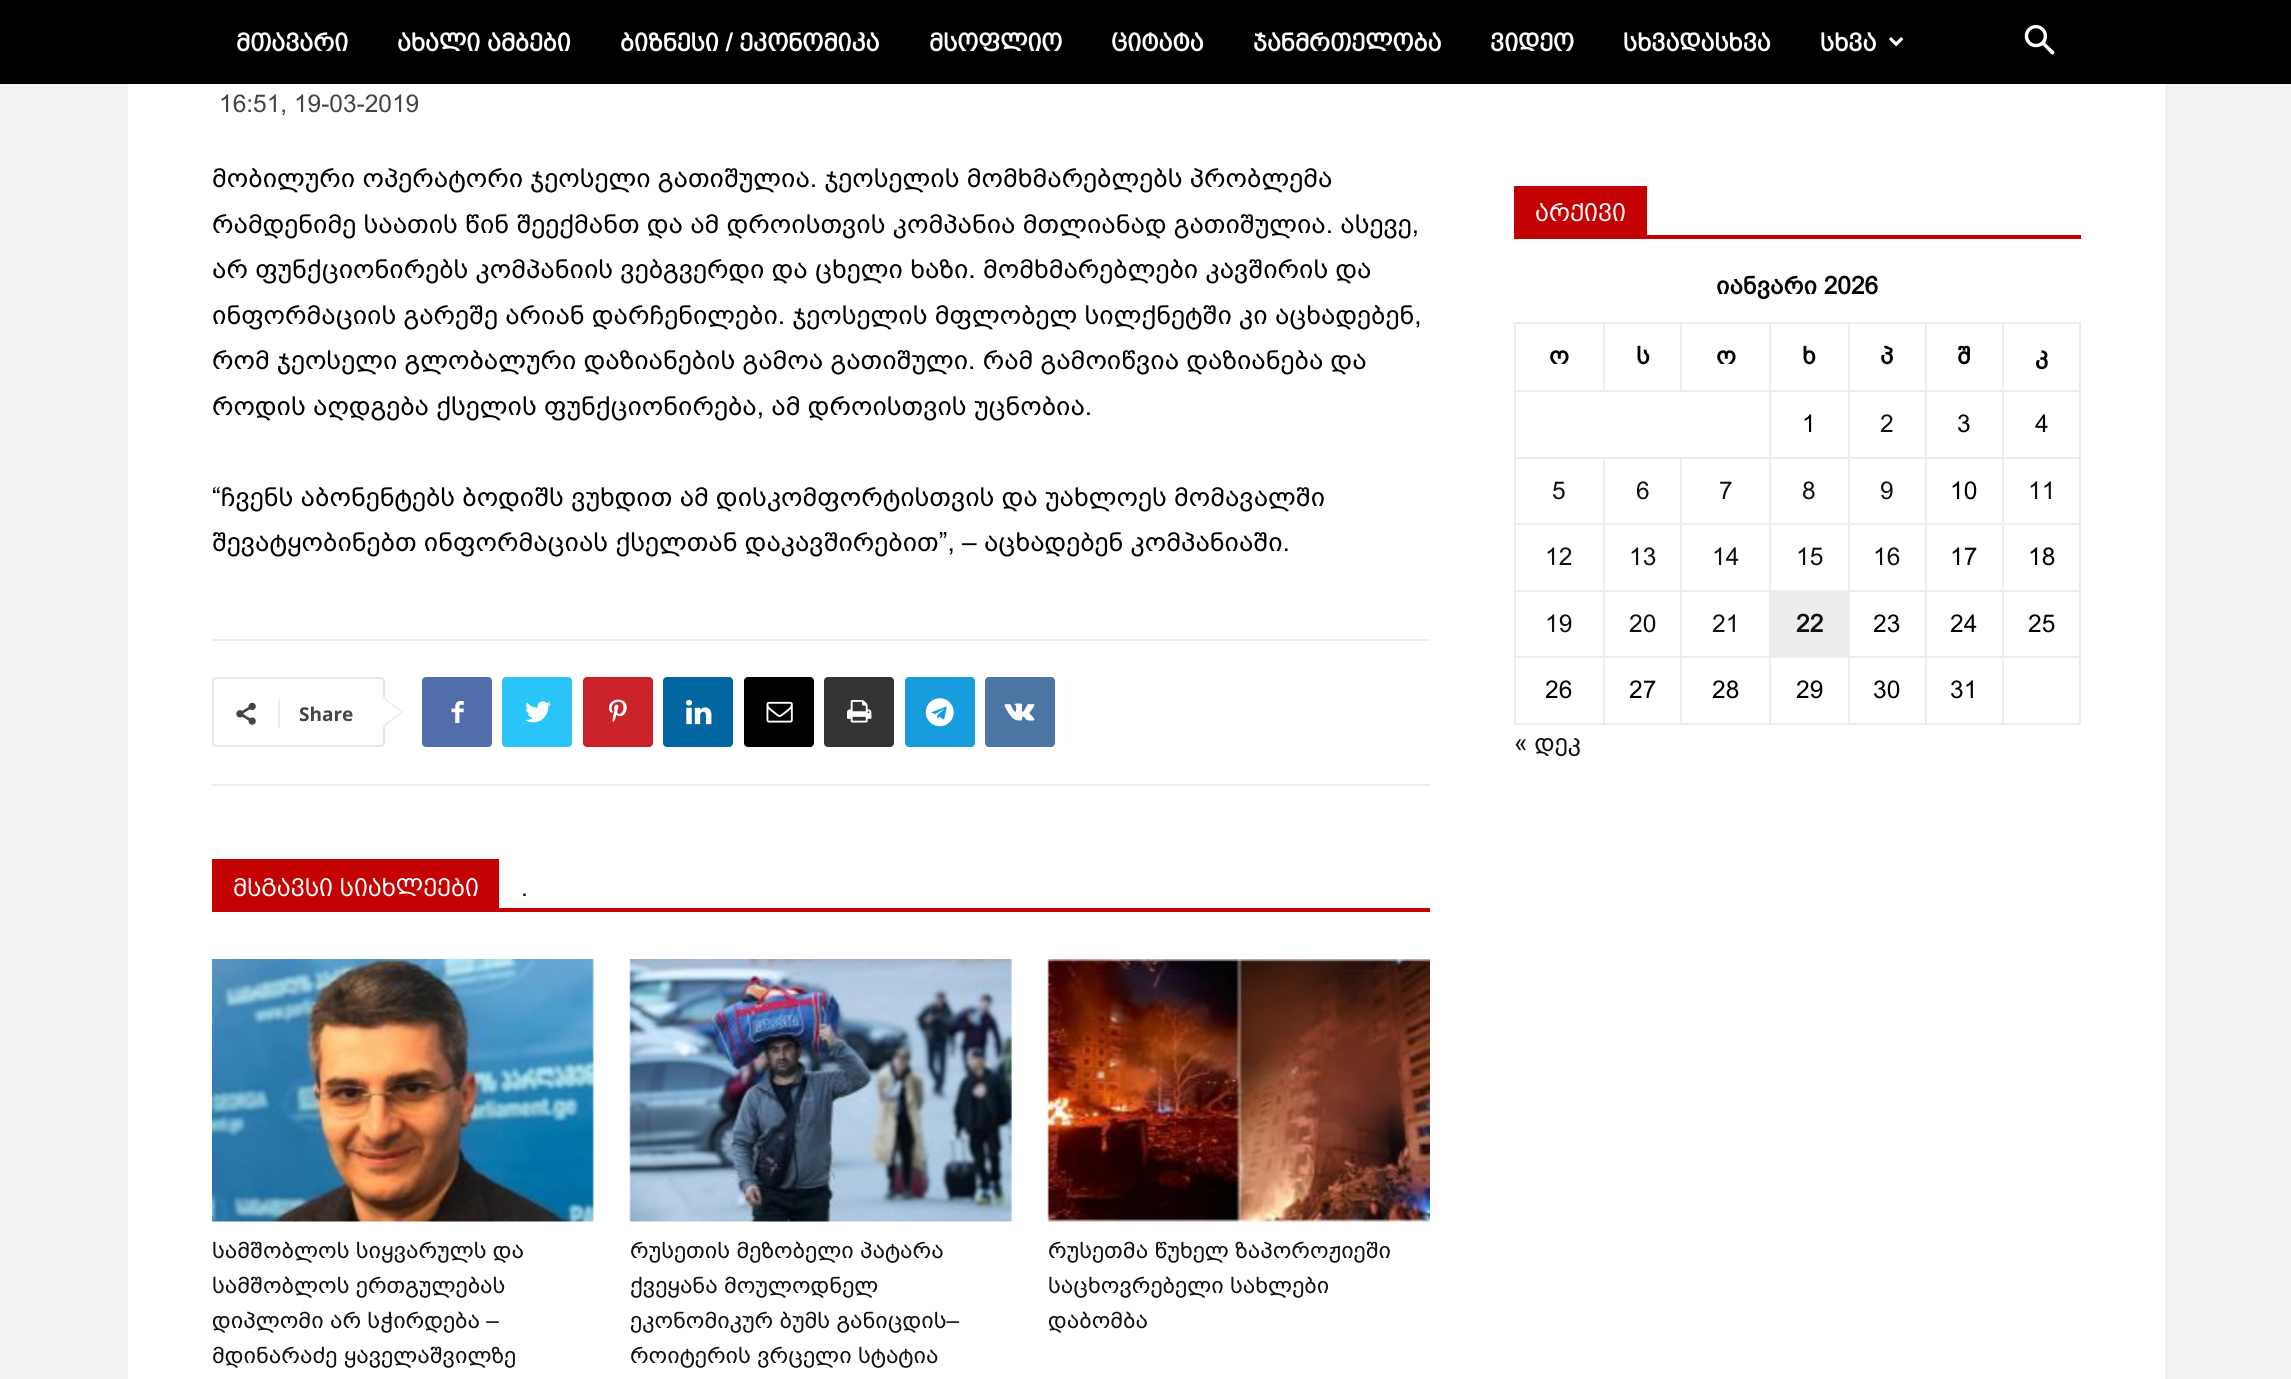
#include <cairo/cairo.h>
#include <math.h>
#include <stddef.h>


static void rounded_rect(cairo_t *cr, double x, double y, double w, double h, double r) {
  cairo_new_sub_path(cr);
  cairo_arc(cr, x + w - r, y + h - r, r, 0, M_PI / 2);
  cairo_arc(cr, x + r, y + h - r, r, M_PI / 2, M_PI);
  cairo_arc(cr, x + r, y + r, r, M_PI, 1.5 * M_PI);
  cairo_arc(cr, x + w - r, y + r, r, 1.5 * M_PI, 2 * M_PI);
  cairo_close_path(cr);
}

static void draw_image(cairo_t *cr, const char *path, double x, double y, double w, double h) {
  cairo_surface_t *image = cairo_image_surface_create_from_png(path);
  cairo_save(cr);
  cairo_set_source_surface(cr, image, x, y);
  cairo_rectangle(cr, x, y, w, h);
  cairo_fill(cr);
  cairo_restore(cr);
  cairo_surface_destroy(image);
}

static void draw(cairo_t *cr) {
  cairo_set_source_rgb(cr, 242 / 255.0, 242 / 255.0, 242 / 255.0);
  cairo_paint(cr);
  cairo_set_source_rgb(cr, 0, 0, 0);
  cairo_rectangle(cr, 0, 0, 2291, 84);
  cairo_fill(cr);
  draw_image(cr, "images/1.png", 1889, 37, 15, 10);
  draw_image(cr, "images/2.png", 2024, 24, 31, 31);
  cairo_set_source_rgb(cr, 1, 1, 1);
  cairo_rectangle(cr, 128, 84, 2037, 1295);
  cairo_fill(cr);
  cairo_set_source_rgb(cr, 237 / 255.0, 237 / 255.0, 237 / 255.0);
  cairo_rectangle(cr, 212, 639, 1218, 2);
  cairo_fill(cr);
  cairo_rectangle(cr, 212, 784, 1218, 2);
  cairo_fill(cr);
  rounded_rect(cr, 213, 678, 171, 68, 3);
  cairo_set_source_rgb(cr, 233 / 255.0, 233 / 255.0, 233 / 255.0);
  cairo_stroke(cr);
  cairo_new_path(cr);
  cairo_move_to(cr, 383, 728);
  cairo_line_to(cr, 383, 696.5);
  cairo_line_to(cr, 402.5, 712);
  cairo_close_path(cr);
  cairo_fill(cr);
  draw_image(cr, "images/3.png", 236, 702, 20, 23);
  cairo_set_source_rgb(cr, 235 / 255.0, 235 / 255.0, 235 / 255.0);
  cairo_rectangle(cr, 278, 700, 2, 28);
  cairo_fill(cr);
  cairo_set_source_rgb(cr, 1, 1, 1);
  cairo_new_path(cr);
  cairo_move_to(cr, 383, 726);
  cairo_line_to(cr, 383, 698);
  cairo_line_to(cr, 401, 712);
  cairo_close_path(cr);
  cairo_fill(cr);
  cairo_set_source_rgb(cr, 81 / 255.0, 110 / 255.0, 171 / 255.0);
  rounded_rect(cr, 422, 677, 70, 70, 4);
  cairo_fill(cr);
  draw_image(cr, "images/4.png", 451, 701, 13, 23);
  cairo_set_source_rgb(cr, 41 / 255.0, 197 / 255.0, 246 / 255.0);
  rounded_rect(cr, 502, 677, 70, 70, 4);
  cairo_fill(cr);
  draw_image(cr, "images/5.png", 525, 701, 26, 22);
  cairo_set_source_rgb(cr, 202 / 255.0, 33 / 255.0, 42 / 255.0);
  rounded_rect(cr, 583, 677, 70, 70, 4);
  cairo_fill(cr);
  draw_image(cr, "images/6.png", 609, 699, 18, 24);
  cairo_set_source_rgb(cr, 2 / 255.0, 102 / 255.0, 160 / 255.0);
  rounded_rect(cr, 663, 677, 70, 70, 4);
  cairo_fill(cr);
  draw_image(cr, "images/7.png", 686, 699, 26, 26);
  cairo_set_source_rgb(cr, 0, 0, 0);
  rounded_rect(cr, 744, 677, 70, 70, 4);
  cairo_fill(cr);
  draw_image(cr, "images/8.png", 766, 701, 27, 22);
  cairo_set_source_rgb(cr, 51 / 255.0, 51 / 255.0, 51 / 255.0);
  rounded_rect(cr, 824, 677, 70, 70, 4);
  cairo_fill(cr);
  draw_image(cr, "images/9.png", 847, 700, 25, 23);
  cairo_set_source_rgb(cr, 23 / 255.0, 156 / 255.0, 222 / 255.0);
  rounded_rect(cr, 905, 677, 70, 70, 4);
  cairo_fill(cr);
  draw_image(cr, "images/10.png", 925, 698, 29, 29);
  cairo_set_source_rgb(cr, 76 / 255.0, 117 / 255.0, 163 / 255.0);
  rounded_rect(cr, 985, 677, 70, 70, 4);
  cairo_fill(cr);
  draw_image(cr, "images/11.png", 1004, 703, 31, 18);
  cairo_set_source_rgb(cr, 197 / 255.0, 2 / 255.0, 3 / 255.0);
  cairo_rectangle(cr, 212, 908, 1218, 4);
  cairo_fill(cr);
  cairo_rectangle(cr, 212, 859, 287, 49);
  cairo_fill(cr);
  draw_image(cr, "images/12.png", 212, 959, 382, 263);
  draw_image(cr, "images/13.png", 629, 959, 383, 263);
  draw_image(cr, "images/14.png", 1047, 959, 383, 263);
  cairo_rectangle(cr, 1514, 235, 567, 4);
  cairo_fill(cr);
  cairo_rectangle(cr, 1514, 186, 133, 49);
  cairo_fill(cr);
  cairo_set_source_rgb(cr, 237 / 255.0, 237 / 255.0, 237 / 255.0);
  cairo_rectangle(cr, 2002, 322, 79, 2);
  cairo_fill(cr);
  cairo_rectangle(cr, 2002, 390, 79, 2);
  cairo_fill(cr);
  cairo_rectangle(cr, 2002, 457, 79, 2);
  cairo_fill(cr);
  cairo_rectangle(cr, 2002, 523, 79, 2);
  cairo_fill(cr);
  cairo_rectangle(cr, 2002, 590, 79, 2);
  cairo_fill(cr);
  cairo_rectangle(cr, 2002, 656, 79, 2);
  cairo_fill(cr);
  cairo_rectangle(cr, 2079, 656, 2, 69);
  cairo_fill(cr);
  cairo_rectangle(cr, 2002, 723, 79, 2);
  cairo_fill(cr);
  cairo_rectangle(cr, 2002, 656, 2, 69);
  cairo_fill(cr);
  cairo_rectangle(cr, 1925, 656, 79, 2);
  cairo_fill(cr);
  cairo_rectangle(cr, 2002, 590, 2, 68);
  cairo_fill(cr);
  cairo_rectangle(cr, 1925, 590, 79, 2);
  cairo_fill(cr);
  cairo_rectangle(cr, 2002, 523, 2, 69);
  cairo_fill(cr);
  cairo_rectangle(cr, 1925, 523, 79, 2);
  cairo_fill(cr);
  cairo_rectangle(cr, 2002, 457, 2, 68);
  cairo_fill(cr);
  cairo_rectangle(cr, 1925, 457, 79, 2);
  cairo_fill(cr);
  cairo_rectangle(cr, 2002, 390, 2, 69);
  cairo_fill(cr);
  cairo_rectangle(cr, 1925, 390, 79, 2);
  cairo_fill(cr);
  cairo_rectangle(cr, 2002, 322, 2, 70);
  cairo_fill(cr);
  cairo_rectangle(cr, 1925, 322, 79, 2);
  cairo_fill(cr);
  cairo_rectangle(cr, 1925, 723, 79, 2);
  cairo_fill(cr);
  cairo_rectangle(cr, 1925, 656, 2, 69);
  cairo_fill(cr);
  cairo_rectangle(cr, 1848, 656, 79, 2);
  cairo_fill(cr);
  cairo_rectangle(cr, 1925, 590, 2, 68);
  cairo_fill(cr);
  cairo_rectangle(cr, 1848, 590, 79, 2);
  cairo_fill(cr);
  cairo_rectangle(cr, 1925, 523, 2, 69);
  cairo_fill(cr);
  cairo_rectangle(cr, 1848, 523, 79, 2);
  cairo_fill(cr);
  cairo_rectangle(cr, 1925, 457, 2, 68);
  cairo_fill(cr);
  cairo_rectangle(cr, 1848, 457, 79, 2);
  cairo_fill(cr);
  cairo_rectangle(cr, 1925, 390, 2, 69);
  cairo_fill(cr);
  cairo_rectangle(cr, 1848, 390, 79, 2);
  cairo_fill(cr);
  cairo_rectangle(cr, 1925, 322, 2, 70);
  cairo_fill(cr);
  cairo_rectangle(cr, 1848, 322, 79, 2);
  cairo_fill(cr);
  cairo_rectangle(cr, 1848, 723, 79, 2);
  cairo_fill(cr);
  cairo_rectangle(cr, 1848, 656, 2, 69);
  cairo_fill(cr);
  cairo_rectangle(cr, 1769, 656, 81, 2);
  cairo_fill(cr);
  cairo_rectangle(cr, 1848, 590, 2, 68);
  cairo_fill(cr);
  cairo_rectangle(cr, 1769, 590, 81, 2);
  cairo_fill(cr);
  cairo_rectangle(cr, 1848, 523, 2, 69);
  cairo_fill(cr);
  cairo_rectangle(cr, 1769, 523, 81, 2);
  cairo_fill(cr);
  cairo_rectangle(cr, 1848, 457, 2, 68);
  cairo_fill(cr);
  cairo_rectangle(cr, 1769, 457, 81, 2);
  cairo_fill(cr);
  cairo_rectangle(cr, 1848, 390, 2, 69);
  cairo_fill(cr);
  cairo_rectangle(cr, 1769, 390, 81, 2);
  cairo_fill(cr);
  cairo_rectangle(cr, 1848, 322, 2, 70);
  cairo_fill(cr);
  cairo_rectangle(cr, 1769, 322, 81, 2);
  cairo_fill(cr);
  cairo_rectangle(cr, 1769, 723, 81, 2);
  cairo_fill(cr);
  cairo_rectangle(cr, 1769, 656, 2, 69);
  cairo_fill(cr);
  cairo_rectangle(cr, 1680, 656, 91, 2);
  cairo_fill(cr);
  cairo_rectangle(cr, 1769, 590, 2, 68);
  cairo_fill(cr);
  cairo_rectangle(cr, 1680, 590, 91, 2);
  cairo_fill(cr);
  cairo_rectangle(cr, 1769, 523, 2, 69);
  cairo_fill(cr);
  cairo_rectangle(cr, 1680, 523, 91, 2);
  cairo_fill(cr);
  cairo_rectangle(cr, 1769, 457, 2, 68);
  cairo_fill(cr);
  cairo_rectangle(cr, 1680, 457, 91, 2);
  cairo_fill(cr);
  cairo_rectangle(cr, 1769, 390, 2, 69);
  cairo_fill(cr);
  cairo_rectangle(cr, 1514, 390, 257, 2);
  cairo_fill(cr);
  cairo_rectangle(cr, 1769, 322, 2, 70);
  cairo_fill(cr);
  cairo_rectangle(cr, 1680, 322, 91, 2);
  cairo_fill(cr);
  cairo_rectangle(cr, 1680, 322, 2, 70);
  cairo_fill(cr);
  cairo_rectangle(cr, 1603, 322, 79, 2);
  cairo_fill(cr);
  cairo_rectangle(cr, 1603, 322, 2, 70);
  cairo_fill(cr);
  cairo_rectangle(cr, 1514, 322, 91, 2);
  cairo_fill(cr);
  cairo_rectangle(cr, 1680, 723, 91, 2);
  cairo_fill(cr);
  cairo_rectangle(cr, 1680, 656, 2, 69);
  cairo_fill(cr);
  cairo_rectangle(cr, 1603, 656, 79, 2);
  cairo_fill(cr);
  cairo_rectangle(cr, 1680, 590, 2, 68);
  cairo_fill(cr);
  cairo_rectangle(cr, 1603, 590, 79, 2);
  cairo_fill(cr);
  cairo_rectangle(cr, 1680, 523, 2, 69);
  cairo_fill(cr);
  cairo_rectangle(cr, 1603, 523, 79, 2);
  cairo_fill(cr);
  cairo_rectangle(cr, 1680, 457, 2, 68);
  cairo_fill(cr);
  cairo_rectangle(cr, 1603, 457, 79, 2);
  cairo_fill(cr);
  cairo_rectangle(cr, 1603, 723, 79, 2);
  cairo_fill(cr);
  cairo_rectangle(cr, 1603, 656, 2, 69);
  cairo_fill(cr);
  cairo_rectangle(cr, 1514, 656, 91, 2);
  cairo_fill(cr);
  cairo_rectangle(cr, 1603, 590, 2, 68);
  cairo_fill(cr);
  cairo_rectangle(cr, 1514, 590, 91, 2);
  cairo_fill(cr);
  cairo_rectangle(cr, 1603, 523, 2, 69);
  cairo_fill(cr);
  cairo_rectangle(cr, 1514, 523, 91, 2);
  cairo_fill(cr);
  cairo_rectangle(cr, 1603, 457, 2, 68);
  cairo_fill(cr);
  cairo_rectangle(cr, 1514, 457, 91, 2);
  cairo_fill(cr);
  cairo_rectangle(cr, 1514, 723, 91, 2);
  cairo_fill(cr);
  cairo_rectangle(cr, 1514, 656, 2, 69);
  cairo_fill(cr);
  cairo_rectangle(cr, 1514, 590, 2, 68);
  cairo_fill(cr);
  cairo_rectangle(cr, 1514, 523, 2, 69);
  cairo_fill(cr);
  cairo_rectangle(cr, 1514, 457, 2, 68);
  cairo_fill(cr);
  cairo_rectangle(cr, 1514, 390, 2, 69);
  cairo_fill(cr);
  cairo_rectangle(cr, 1514, 322, 2, 70);
  cairo_fill(cr);
  cairo_rectangle(cr, 2079, 590, 2, 68);
  cairo_fill(cr);
  cairo_rectangle(cr, 2079, 523, 2, 69);
  cairo_fill(cr);
  cairo_rectangle(cr, 2079, 457, 2, 68);
  cairo_fill(cr);
  cairo_rectangle(cr, 2079, 390, 2, 69);
  cairo_fill(cr);
  cairo_rectangle(cr, 2079, 322, 2, 70);
  cairo_fill(cr);
  cairo_rectangle(cr, 1771, 592, 77, 64);
  cairo_fill(cr);
  cairo_select_font_face(cr, "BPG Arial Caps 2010", CAIRO_FONT_SLANT_NORMAL, CAIRO_FONT_WEIGHT_BOLD);
  cairo_set_font_size(cr, 24.5);
  cairo_set_source_rgb(cr, 1, 1, 1);
  cairo_move_to(cr, 236, 51);
  cairo_show_text(cr, "მთავარი");
  cairo_move_to(cr, 397, 51);
  cairo_show_text(cr, "ახალი ამბები");
  cairo_move_to(cr, 620, 51);
  cairo_show_text(cr, "ბიზნესი / ეკონომიკა");
  cairo_move_to(cr, 929, 51);
  cairo_show_text(cr, "მსოფლიო");
  cairo_move_to(cr, 1111, 51);
  cairo_show_text(cr, "ციტატა");
  cairo_move_to(cr, 1253, 51);
  cairo_show_text(cr, "ჯანმრთელობა");
  cairo_move_to(cr, 1490, 51);
  cairo_show_text(cr, "ვიდეო");
  cairo_move_to(cr, 1623, 51);
  cairo_show_text(cr, "სხვადასხვა");
  cairo_move_to(cr, 1820, 51);
  cairo_show_text(cr, "სხვა");
  cairo_select_font_face(cr, "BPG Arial", CAIRO_FONT_SLANT_NORMAL, CAIRO_FONT_WEIGHT_NORMAL);
  cairo_set_source_rgb(cr, 68 / 255.0, 68 / 255.0, 68 / 255.0);
  cairo_move_to(cr, 219, 112);
  cairo_show_text(cr, "16:51, 19-03-2019");
  cairo_set_font_size(cr, 26.25);
  cairo_set_source_rgb(cr, 0, 0, 0);
  cairo_move_to(cr, 212, 187);
  cairo_show_text(cr, "მობილური ოპერატორი ჯეოსელი გათიშულია. ჯეოსელის მომხმარებლებს პრობლემა");
  cairo_move_to(cr, 212, 233);
  cairo_show_text(cr, "რამდენიმე საათის წინ შეექმანთ და ამ დროისთვის კომპანია მთლიანად გათიშულია. ასევე,");
  cairo_move_to(cr, 212, 278);
  cairo_show_text(cr, "არ ფუნქციონირებს კომპანიის ვებგვერდი და ცხელი ხაზი. მომხმარებლები კავშირის და");
  cairo_move_to(cr, 212, 324);
  cairo_show_text(cr, "ინფორმაციის გარეშე არიან დარჩენილები. ჯეოსელის მფლობელ სილქნეტში კი აცხადებენ,");
  cairo_move_to(cr, 212, 369);
  cairo_show_text(cr, "რომ ჯეოსელი გლობალური დაზიანების გამოა გათიშული. რამ გამოიწვია დაზიანება და");
  cairo_move_to(cr, 212, 415);
  cairo_show_text(cr, "როდის აღდგება ქსელის ფუნქციონირება, ამ დროისთვის უცნობია.");
  cairo_move_to(cr, 212, 506);
  cairo_show_text(cr, "“ჩვენს აბონენტებს ბოდიშს ვუხდით ამ დისკომფორტისთვის და უახლოეს მომავალში");
  cairo_move_to(cr, 212, 551);
  cairo_show_text(cr, "შევატყობინებთ ინფორმაციას ქსელთან დაკავშირებით”, – აცხადებენ კომპანიაში.");
  cairo_select_font_face(cr, "Open Sans", CAIRO_FONT_SLANT_NORMAL, CAIRO_FONT_WEIGHT_BOLD);
  cairo_set_font_size(cr, 19);
  cairo_set_source_rgb(cr, 68 / 255.0, 68 / 255.0, 68 / 255.0);
  cairo_move_to(cr, 299, 721);
  cairo_show_text(cr, "Share");
  cairo_select_font_face(cr, "BPG Arial Caps 2010", CAIRO_FONT_SLANT_NORMAL, CAIRO_FONT_WEIGHT_NORMAL);
  cairo_set_font_size(cr, 24.5);
  cairo_set_source_rgb(cr, 1, 1, 1);
  cairo_move_to(cr, 233, 896);
  cairo_show_text(cr, "მსგავსი სიახლეები");
  cairo_set_source_rgb(cr, 17 / 255.0, 17 / 255.0, 17 / 255.0);
  cairo_move_to(cr, 521, 896);
  cairo_show_text(cr, ".");
  cairo_select_font_face(cr, "BPG Arial", CAIRO_FONT_SLANT_NORMAL, CAIRO_FONT_WEIGHT_NORMAL);
  cairo_set_font_size(cr, 22.75);
  cairo_move_to(cr, 212, 1258);
  cairo_show_text(cr, "სამშობლოს სიყვარულს და");
  cairo_move_to(cr, 212, 1293);
  cairo_show_text(cr, "სამშობლოს ერთგულებას");
  cairo_move_to(cr, 212, 1328);
  cairo_show_text(cr, "დიპლომი არ სჭირდება –");
  cairo_move_to(cr, 212, 1363);
  cairo_show_text(cr, "მდინარაძე ყაველაშვილზე");
  cairo_move_to(cr, 630, 1258);
  cairo_show_text(cr, "რუსეთის მეზობელი პატარა");
  cairo_move_to(cr, 630, 1293);
  cairo_show_text(cr, "ქვეყანა მოულოდნელ");
  cairo_move_to(cr, 630, 1328);
  cairo_show_text(cr, "ეკონომიკურ ბუმს განიცდის–");
  cairo_move_to(cr, 630, 1363);
  cairo_show_text(cr, "როიტერის ვრცელი სტატია");
  cairo_move_to(cr, 1048, 1258);
  cairo_show_text(cr, "რუსეთმა წუხელ ზაპოროჟიეში");
  cairo_move_to(cr, 1048, 1293);
  cairo_show_text(cr, "საცხოვრებელი სახლები");
  cairo_move_to(cr, 1048, 1328);
  cairo_show_text(cr, "დაბომბა");
  cairo_select_font_face(cr, "BPG Arial Caps 2010", CAIRO_FONT_SLANT_NORMAL, CAIRO_FONT_WEIGHT_NORMAL);
  cairo_set_font_size(cr, 24.5);
  cairo_set_source_rgb(cr, 1, 1, 1);
  cairo_move_to(cr, 1535, 221);
  cairo_show_text(cr, "არქივი");
  cairo_select_font_face(cr, "BPG Arial", CAIRO_FONT_SLANT_NORMAL, CAIRO_FONT_WEIGHT_BOLD);
  cairo_set_source_rgb(cr, 0, 0, 0);
  cairo_move_to(cr, 1716, 294);
  cairo_show_text(cr, "იანვარი 2026");
  cairo_move_to(cr, 1549, 364);
  cairo_show_text(cr, "ო");
  cairo_move_to(cr, 1636, 364);
  cairo_show_text(cr, "ს");
  cairo_move_to(cr, 1716, 364);
  cairo_show_text(cr, "ო");
  cairo_move_to(cr, 1802, 364);
  cairo_show_text(cr, "ხ");
  cairo_move_to(cr, 1880, 364);
  cairo_show_text(cr, "პ");
  cairo_move_to(cr, 1957, 364);
  cairo_show_text(cr, "შ");
  cairo_move_to(cr, 2035, 364);
  cairo_show_text(cr, "კ");
  cairo_select_font_face(cr, "BPG Arial", CAIRO_FONT_SLANT_NORMAL, CAIRO_FONT_WEIGHT_NORMAL);
  cairo_move_to(cr, 1802, 432);
  cairo_show_text(cr, "1");
  cairo_set_source_rgb(cr, 17 / 255.0, 17 / 255.0, 17 / 255.0);
  cairo_move_to(cr, 1880, 432);
  cairo_show_text(cr, "2");
  cairo_set_source_rgb(cr, 0, 0, 0);
  cairo_move_to(cr, 1957, 432);
  cairo_show_text(cr, "3");
  cairo_move_to(cr, 2035, 432);
  cairo_show_text(cr, "4");
  cairo_set_source_rgb(cr, 17 / 255.0, 17 / 255.0, 17 / 255.0);
  cairo_move_to(cr, 1552, 499);
  cairo_show_text(cr, "5");
  cairo_move_to(cr, 1636, 499);
  cairo_show_text(cr, "6");
  cairo_move_to(cr, 1719, 499);
  cairo_show_text(cr, "7");
  cairo_move_to(cr, 1802, 499);
  cairo_show_text(cr, "8");
  cairo_move_to(cr, 1880, 499);
  cairo_show_text(cr, "9");
  cairo_set_source_rgb(cr, 0, 0, 0);
  cairo_move_to(cr, 1950, 499);
  cairo_show_text(cr, "10");
  cairo_set_source_rgb(cr, 17 / 255.0, 17 / 255.0, 17 / 255.0);
  cairo_move_to(cr, 2028, 499);
  cairo_show_text(cr, "11");
  cairo_move_to(cr, 1545, 565);
  cairo_show_text(cr, "12");
  cairo_move_to(cr, 1629, 565);
  cairo_show_text(cr, "13");
  cairo_move_to(cr, 1712, 565);
  cairo_show_text(cr, "14");
  cairo_move_to(cr, 1796, 565);
  cairo_show_text(cr, "15");
  cairo_move_to(cr, 1873, 565);
  cairo_show_text(cr, "16");
  cairo_set_source_rgb(cr, 0, 0, 0);
  cairo_move_to(cr, 1950, 565);
  cairo_show_text(cr, "17");
  cairo_move_to(cr, 2028, 565);
  cairo_show_text(cr, "18");
  cairo_set_source_rgb(cr, 17 / 255.0, 17 / 255.0, 17 / 255.0);
  cairo_move_to(cr, 1545, 632);
  cairo_show_text(cr, "19");
  cairo_move_to(cr, 1629, 632);
  cairo_show_text(cr, "20");
  cairo_move_to(cr, 1712, 632);
  cairo_show_text(cr, "21");
  cairo_select_font_face(cr, "BPG Arial", CAIRO_FONT_SLANT_NORMAL, CAIRO_FONT_WEIGHT_BOLD);
  cairo_move_to(cr, 1796, 632);
  cairo_show_text(cr, "22");
  cairo_select_font_face(cr, "BPG Arial", CAIRO_FONT_SLANT_NORMAL, CAIRO_FONT_WEIGHT_NORMAL);
  cairo_set_source_rgb(cr, 0, 0, 0);
  cairo_move_to(cr, 1873, 632);
  cairo_show_text(cr, "23");
  cairo_move_to(cr, 1950, 632);
  cairo_show_text(cr, "24");
  cairo_move_to(cr, 2028, 632);
  cairo_show_text(cr, "25");
  cairo_move_to(cr, 1545, 698);
  cairo_show_text(cr, "26");
  cairo_move_to(cr, 1629, 698);
  cairo_show_text(cr, "27");
  cairo_move_to(cr, 1712, 698);
  cairo_show_text(cr, "28");
  cairo_move_to(cr, 1796, 698);
  cairo_show_text(cr, "29");
  cairo_move_to(cr, 1873, 698);
  cairo_show_text(cr, "30");
  cairo_move_to(cr, 1950, 698);
  cairo_show_text(cr, "31");
  cairo_set_source_rgb(cr, 17 / 255.0, 17 / 255.0, 17 / 255.0);
  cairo_move_to(cr, 1514, 751);
  cairo_show_text(cr, "« დეკ");
}

int main(void) {
  cairo_surface_t *surface = cairo_image_surface_create(CAIRO_FORMAT_RGB24, 2291, 1379);
  cairo_t *cr = cairo_create(surface);
  cairo_font_options_t *options = cairo_font_options_create();
  cairo_font_options_set_hint_metrics(options, CAIRO_HINT_METRICS_OFF);
  cairo_font_options_set_hint_style(options, CAIRO_HINT_STYLE_NONE);
  cairo_set_font_options(cr, options);
  cairo_set_miter_limit(cr, 4);
  draw(cr);
  cairo_surface_write_to_png(surface, "out.png");
  cairo_font_options_destroy(options);
  cairo_destroy(cr);
  cairo_surface_destroy(surface);
  return 0;
}
